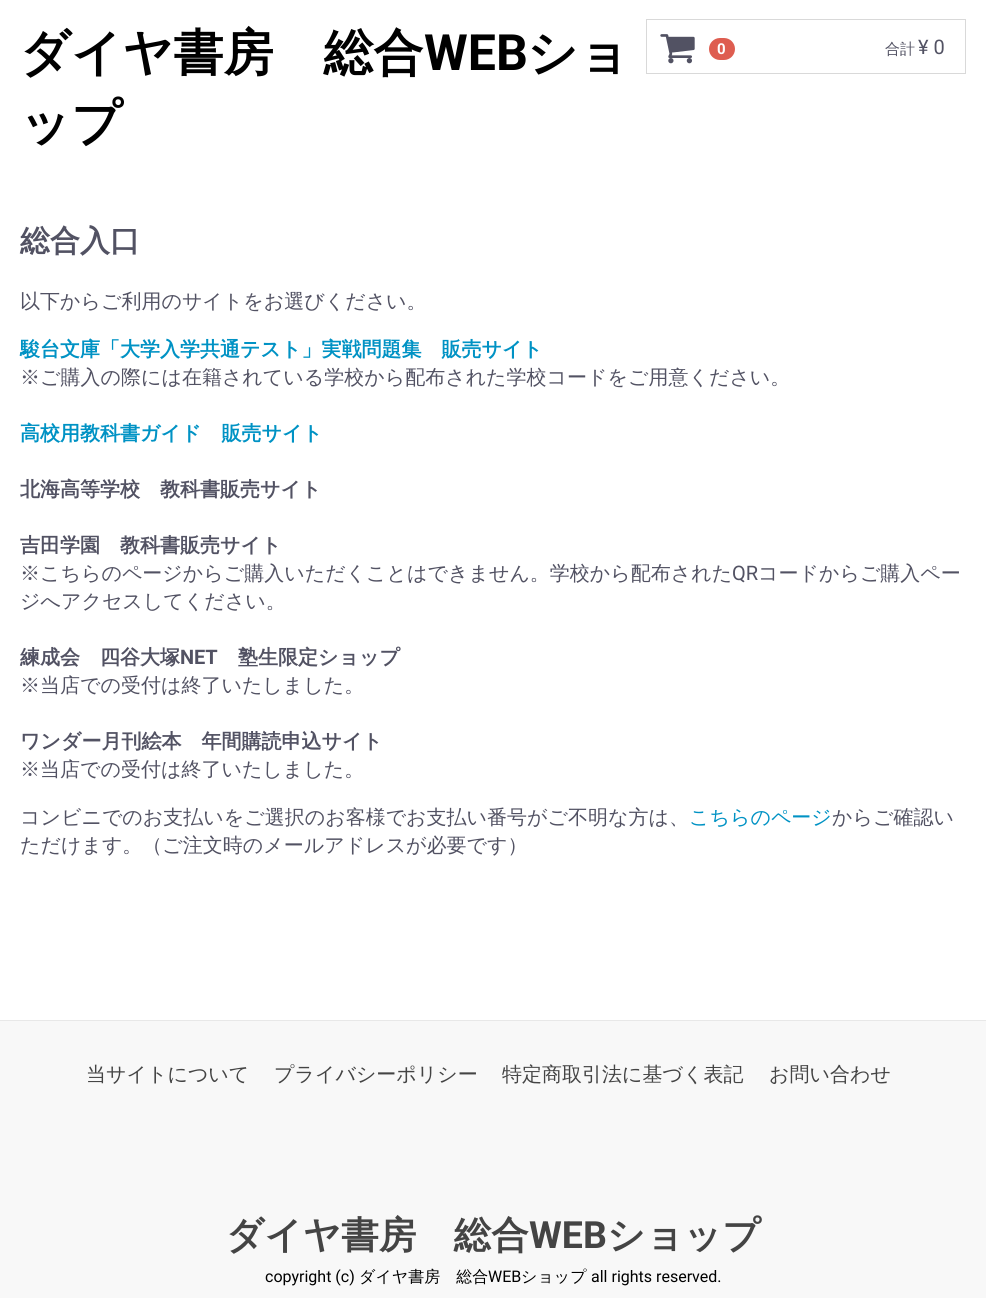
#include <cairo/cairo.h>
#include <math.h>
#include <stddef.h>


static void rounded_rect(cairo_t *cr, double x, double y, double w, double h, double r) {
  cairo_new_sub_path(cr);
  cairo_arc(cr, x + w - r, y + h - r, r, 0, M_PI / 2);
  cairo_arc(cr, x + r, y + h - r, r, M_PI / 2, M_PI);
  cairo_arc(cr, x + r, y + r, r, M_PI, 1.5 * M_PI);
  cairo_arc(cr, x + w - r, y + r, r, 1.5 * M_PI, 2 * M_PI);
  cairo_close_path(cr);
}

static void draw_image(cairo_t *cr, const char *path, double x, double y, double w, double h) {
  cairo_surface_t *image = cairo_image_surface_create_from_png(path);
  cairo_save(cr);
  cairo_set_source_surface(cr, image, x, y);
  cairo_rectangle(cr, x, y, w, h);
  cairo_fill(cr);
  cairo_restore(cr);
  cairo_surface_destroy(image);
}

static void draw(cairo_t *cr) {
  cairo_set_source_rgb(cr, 1, 1, 1);
  cairo_paint(cr);
  cairo_rectangle(cr, 646.5, 19.5, 319, 54);
  cairo_set_source_rgb(cr, 217 / 255.0, 217 / 255.0, 217 / 255.0);
  cairo_set_line_width(cr, 1);
  cairo_stroke(cr);
  draw_image(cr, "images/1.png", 660, 34, 35, 30);
  cairo_set_source_rgb(cr, 222 / 255.0, 93 / 255.0, 80 / 255.0);
  rounded_rect(cr, 709, 38, 26, 22, 11);
  cairo_fill(cr);
  cairo_set_source_rgb(cr, 248 / 255.0, 248 / 255.0, 248 / 255.0);
  cairo_rectangle(cr, 0, 1021, 986, 277);
  cairo_fill(cr);
  cairo_set_source_rgb(cr, 232 / 255.0, 232 / 255.0, 232 / 255.0);
  cairo_rectangle(cr, 0, 1020, 986, 1);
  cairo_fill(cr);
  cairo_select_font_face(cr, "WenQuanYi Zen Hei", CAIRO_FONT_SLANT_NORMAL, CAIRO_FONT_WEIGHT_BOLD);
  cairo_set_font_size(cr, 50);
  cairo_set_source_rgb(cr, 0, 0, 0);
  cairo_move_to(cr, 20, 70);
  cairo_show_text(cr, "ダイヤ書房　総合");
  cairo_select_font_face(cr, "Roboto", CAIRO_FONT_SLANT_NORMAL, CAIRO_FONT_WEIGHT_BOLD);
  cairo_move_to(cr, 424, 70);
  cairo_show_text(cr, "WEB");
  cairo_select_font_face(cr, "WenQuanYi Zen Hei", CAIRO_FONT_SLANT_NORMAL, CAIRO_FONT_WEIGHT_BOLD);
  cairo_move_to(cr, 527, 70);
  cairo_show_text(cr, "ショ");
  cairo_move_to(cr, 20, 140);
  cairo_show_text(cr, "ップ");
  cairo_select_font_face(cr, "Roboto", CAIRO_FONT_SLANT_NORMAL, CAIRO_FONT_WEIGHT_BOLD);
  cairo_set_font_size(cr, 15);
  cairo_set_source_rgb(cr, 1, 1, 1);
  cairo_move_to(cr, 717, 54);
  cairo_show_text(cr, "0");
  cairo_select_font_face(cr, "WenQuanYi Zen Hei Medium", CAIRO_FONT_SLANT_NORMAL, CAIRO_FONT_WEIGHT_NORMAL);
  cairo_set_source_rgb(cr, 82 / 255.0, 82 / 255.0, 99 / 255.0);
  cairo_move_to(cr, 885, 54);
  cairo_show_text(cr, "合計");
  cairo_select_font_face(cr, "Roboto", CAIRO_FONT_SLANT_NORMAL, CAIRO_FONT_WEIGHT_NORMAL);
  cairo_set_font_size(cr, 20);
  cairo_move_to(cr, 918, 54);
  cairo_show_text(cr, "¥ 0");
  cairo_select_font_face(cr, "WenQuanYi Zen Hei", CAIRO_FONT_SLANT_NORMAL, CAIRO_FONT_WEIGHT_BOLD);
  cairo_set_font_size(cr, 30);
  cairo_move_to(cr, 20, 251);
  cairo_show_text(cr, "総合入口");
  cairo_select_font_face(cr, "WenQuanYi Zen Hei Medium", CAIRO_FONT_SLANT_NORMAL, CAIRO_FONT_WEIGHT_NORMAL);
  cairo_set_font_size(cr, 20);
  cairo_move_to(cr, 20, 308);
  cairo_show_text(cr, "以下からご利用のサイトをお選びください。");
  cairo_select_font_face(cr, "WenQuanYi Zen Hei", CAIRO_FONT_SLANT_NORMAL, CAIRO_FONT_WEIGHT_BOLD);
  cairo_set_source_rgb(cr, 0, 146 / 255.0, 196 / 255.0);
  cairo_move_to(cr, 20, 356);
  cairo_show_text(cr, "駿台文庫「大学入学共通テスト」実戦問題集　販売サイト");
  cairo_select_font_face(cr, "WenQuanYi Zen Hei Medium", CAIRO_FONT_SLANT_NORMAL, CAIRO_FONT_WEIGHT_NORMAL);
  cairo_set_source_rgb(cr, 82 / 255.0, 82 / 255.0, 99 / 255.0);
  cairo_move_to(cr, 20, 384);
  cairo_show_text(cr, "※ご購入の際には在籍されている学校から配布された学校コードをご用意ください。");
  cairo_select_font_face(cr, "WenQuanYi Zen Hei", CAIRO_FONT_SLANT_NORMAL, CAIRO_FONT_WEIGHT_BOLD);
  cairo_set_source_rgb(cr, 0, 146 / 255.0, 196 / 255.0);
  cairo_move_to(cr, 20, 440);
  cairo_show_text(cr, "高校用教科書ガイド　販売サイト");
  cairo_set_source_rgb(cr, 82 / 255.0, 82 / 255.0, 99 / 255.0);
  cairo_move_to(cr, 20, 496);
  cairo_show_text(cr, "北海高等学校　教科書販売サイト");
  cairo_move_to(cr, 20, 552);
  cairo_show_text(cr, "吉田学園　教科書販売サイト");
  cairo_select_font_face(cr, "WenQuanYi Zen Hei Medium", CAIRO_FONT_SLANT_NORMAL, CAIRO_FONT_WEIGHT_NORMAL);
  cairo_move_to(cr, 20, 580);
  cairo_show_text(cr, "※こちらのページからご購入いただくことはできません。学校から配布された");
  cairo_select_font_face(cr, "Roboto", CAIRO_FONT_SLANT_NORMAL, CAIRO_FONT_WEIGHT_NORMAL);
  cairo_move_to(cr, 732, 580);
  cairo_show_text(cr, "QR");
  cairo_select_font_face(cr, "WenQuanYi Zen Hei Medium", CAIRO_FONT_SLANT_NORMAL, CAIRO_FONT_WEIGHT_NORMAL);
  cairo_move_to(cr, 758, 580);
  cairo_show_text(cr, "コードからご購入ペー");
  cairo_move_to(cr, 20, 608);
  cairo_show_text(cr, "ジへアクセスしてください。");
  cairo_select_font_face(cr, "WenQuanYi Zen Hei", CAIRO_FONT_SLANT_NORMAL, CAIRO_FONT_WEIGHT_BOLD);
  cairo_move_to(cr, 20, 664);
  cairo_show_text(cr, "練成会　四谷大塚");
  cairo_select_font_face(cr, "Roboto", CAIRO_FONT_SLANT_NORMAL, CAIRO_FONT_WEIGHT_BOLD);
  cairo_move_to(cr, 180, 664);
  cairo_show_text(cr, "NET");
  cairo_select_font_face(cr, "WenQuanYi Zen Hei", CAIRO_FONT_SLANT_NORMAL, CAIRO_FONT_WEIGHT_BOLD);
  cairo_move_to(cr, 238, 664);
  cairo_show_text(cr, "塾生限定ショップ");
  cairo_select_font_face(cr, "WenQuanYi Zen Hei Medium", CAIRO_FONT_SLANT_NORMAL, CAIRO_FONT_WEIGHT_NORMAL);
  cairo_move_to(cr, 20, 692);
  cairo_show_text(cr, "※当店での受付は終了いたしました。");
  cairo_select_font_face(cr, "WenQuanYi Zen Hei", CAIRO_FONT_SLANT_NORMAL, CAIRO_FONT_WEIGHT_BOLD);
  cairo_move_to(cr, 20, 748);
  cairo_show_text(cr, "ワンダー月刊絵本　年間購読申込サイト");
  cairo_select_font_face(cr, "WenQuanYi Zen Hei Medium", CAIRO_FONT_SLANT_NORMAL, CAIRO_FONT_WEIGHT_NORMAL);
  cairo_move_to(cr, 20, 776);
  cairo_show_text(cr, "※当店での受付は終了いたしました。");
  cairo_move_to(cr, 20, 824);
  cairo_show_text(cr, "コンビニでのお支払いをご選択のお客様でお支払い番号がご不明な方は、");
  cairo_set_source_rgb(cr, 0, 146 / 255.0, 196 / 255.0);
  cairo_move_to(cr, 689, 824);
  cairo_show_text(cr, "こちらのページ");
  cairo_set_source_rgb(cr, 82 / 255.0, 82 / 255.0, 99 / 255.0);
  cairo_move_to(cr, 832, 824);
  cairo_show_text(cr, "からご確認い");
  cairo_move_to(cr, 20, 852);
  cairo_show_text(cr, "ただけます。（ご注文時のメールアドレスが必要です）");
  cairo_set_source_rgb(cr, 68 / 255.0, 68 / 255.0, 68 / 255.0);
  cairo_move_to(cr, 86, 1081);
  cairo_show_text(cr, "当サイトについて");
  cairo_move_to(cr, 274, 1081);
  cairo_show_text(cr, "プライバシーポリシー");
  cairo_move_to(cr, 502, 1081);
  cairo_show_text(cr, "特定商取引法に基づく表記");
  cairo_move_to(cr, 769, 1081);
  cairo_show_text(cr, "お問い合わせ");
  cairo_select_font_face(cr, "WenQuanYi Zen Hei", CAIRO_FONT_SLANT_NORMAL, CAIRO_FONT_WEIGHT_BOLD);
  cairo_set_font_size(cr, 37.5);
  cairo_move_to(cr, 226, 1248);
  cairo_show_text(cr, "ダイヤ書房　総合");
  cairo_select_font_face(cr, "Roboto", CAIRO_FONT_SLANT_NORMAL, CAIRO_FONT_WEIGHT_BOLD);
  cairo_move_to(cr, 529, 1248);
  cairo_show_text(cr, "WEB");
  cairo_select_font_face(cr, "WenQuanYi Zen Hei", CAIRO_FONT_SLANT_NORMAL, CAIRO_FONT_WEIGHT_BOLD);
  cairo_move_to(cr, 607, 1248);
  cairo_show_text(cr, "ショップ");
  cairo_select_font_face(cr, "Roboto", CAIRO_FONT_SLANT_NORMAL, CAIRO_FONT_WEIGHT_NORMAL);
  cairo_set_font_size(cr, 16);
  cairo_set_source_rgb(cr, 0, 0, 0);
  cairo_move_to(cr, 265, 1282);
  cairo_show_text(cr, "copyright (c)");
  cairo_select_font_face(cr, "WenQuanYi Zen Hei Medium", CAIRO_FONT_SLANT_NORMAL, CAIRO_FONT_WEIGHT_NORMAL);
  cairo_move_to(cr, 359, 1282);
  cairo_show_text(cr, "ダイヤ書房　総合");
  cairo_select_font_face(cr, "Roboto", CAIRO_FONT_SLANT_NORMAL, CAIRO_FONT_WEIGHT_NORMAL);
  cairo_move_to(cr, 488, 1282);
  cairo_show_text(cr, "WEB");
  cairo_select_font_face(cr, "WenQuanYi Zen Hei Medium", CAIRO_FONT_SLANT_NORMAL, CAIRO_FONT_WEIGHT_NORMAL);
  cairo_move_to(cr, 521, 1282);
  cairo_show_text(cr, "ショップ");
  cairo_select_font_face(cr, "Roboto", CAIRO_FONT_SLANT_NORMAL, CAIRO_FONT_WEIGHT_NORMAL);
  cairo_move_to(cr, 591, 1282);
  cairo_show_text(cr, "all rights reserved.");
}

int main(void) {
  cairo_surface_t *surface = cairo_image_surface_create(CAIRO_FORMAT_RGB24, 986, 1298);
  cairo_t *cr = cairo_create(surface);
  cairo_font_options_t *options = cairo_font_options_create();
  cairo_font_options_set_hint_metrics(options, CAIRO_HINT_METRICS_OFF);
  cairo_font_options_set_hint_style(options, CAIRO_HINT_STYLE_NONE);
  cairo_set_font_options(cr, options);
  cairo_set_miter_limit(cr, 4);
  draw(cr);
  cairo_surface_write_to_png(surface, "out.png");
  cairo_font_options_destroy(options);
  cairo_destroy(cr);
  cairo_surface_destroy(surface);
  return 0;
}
